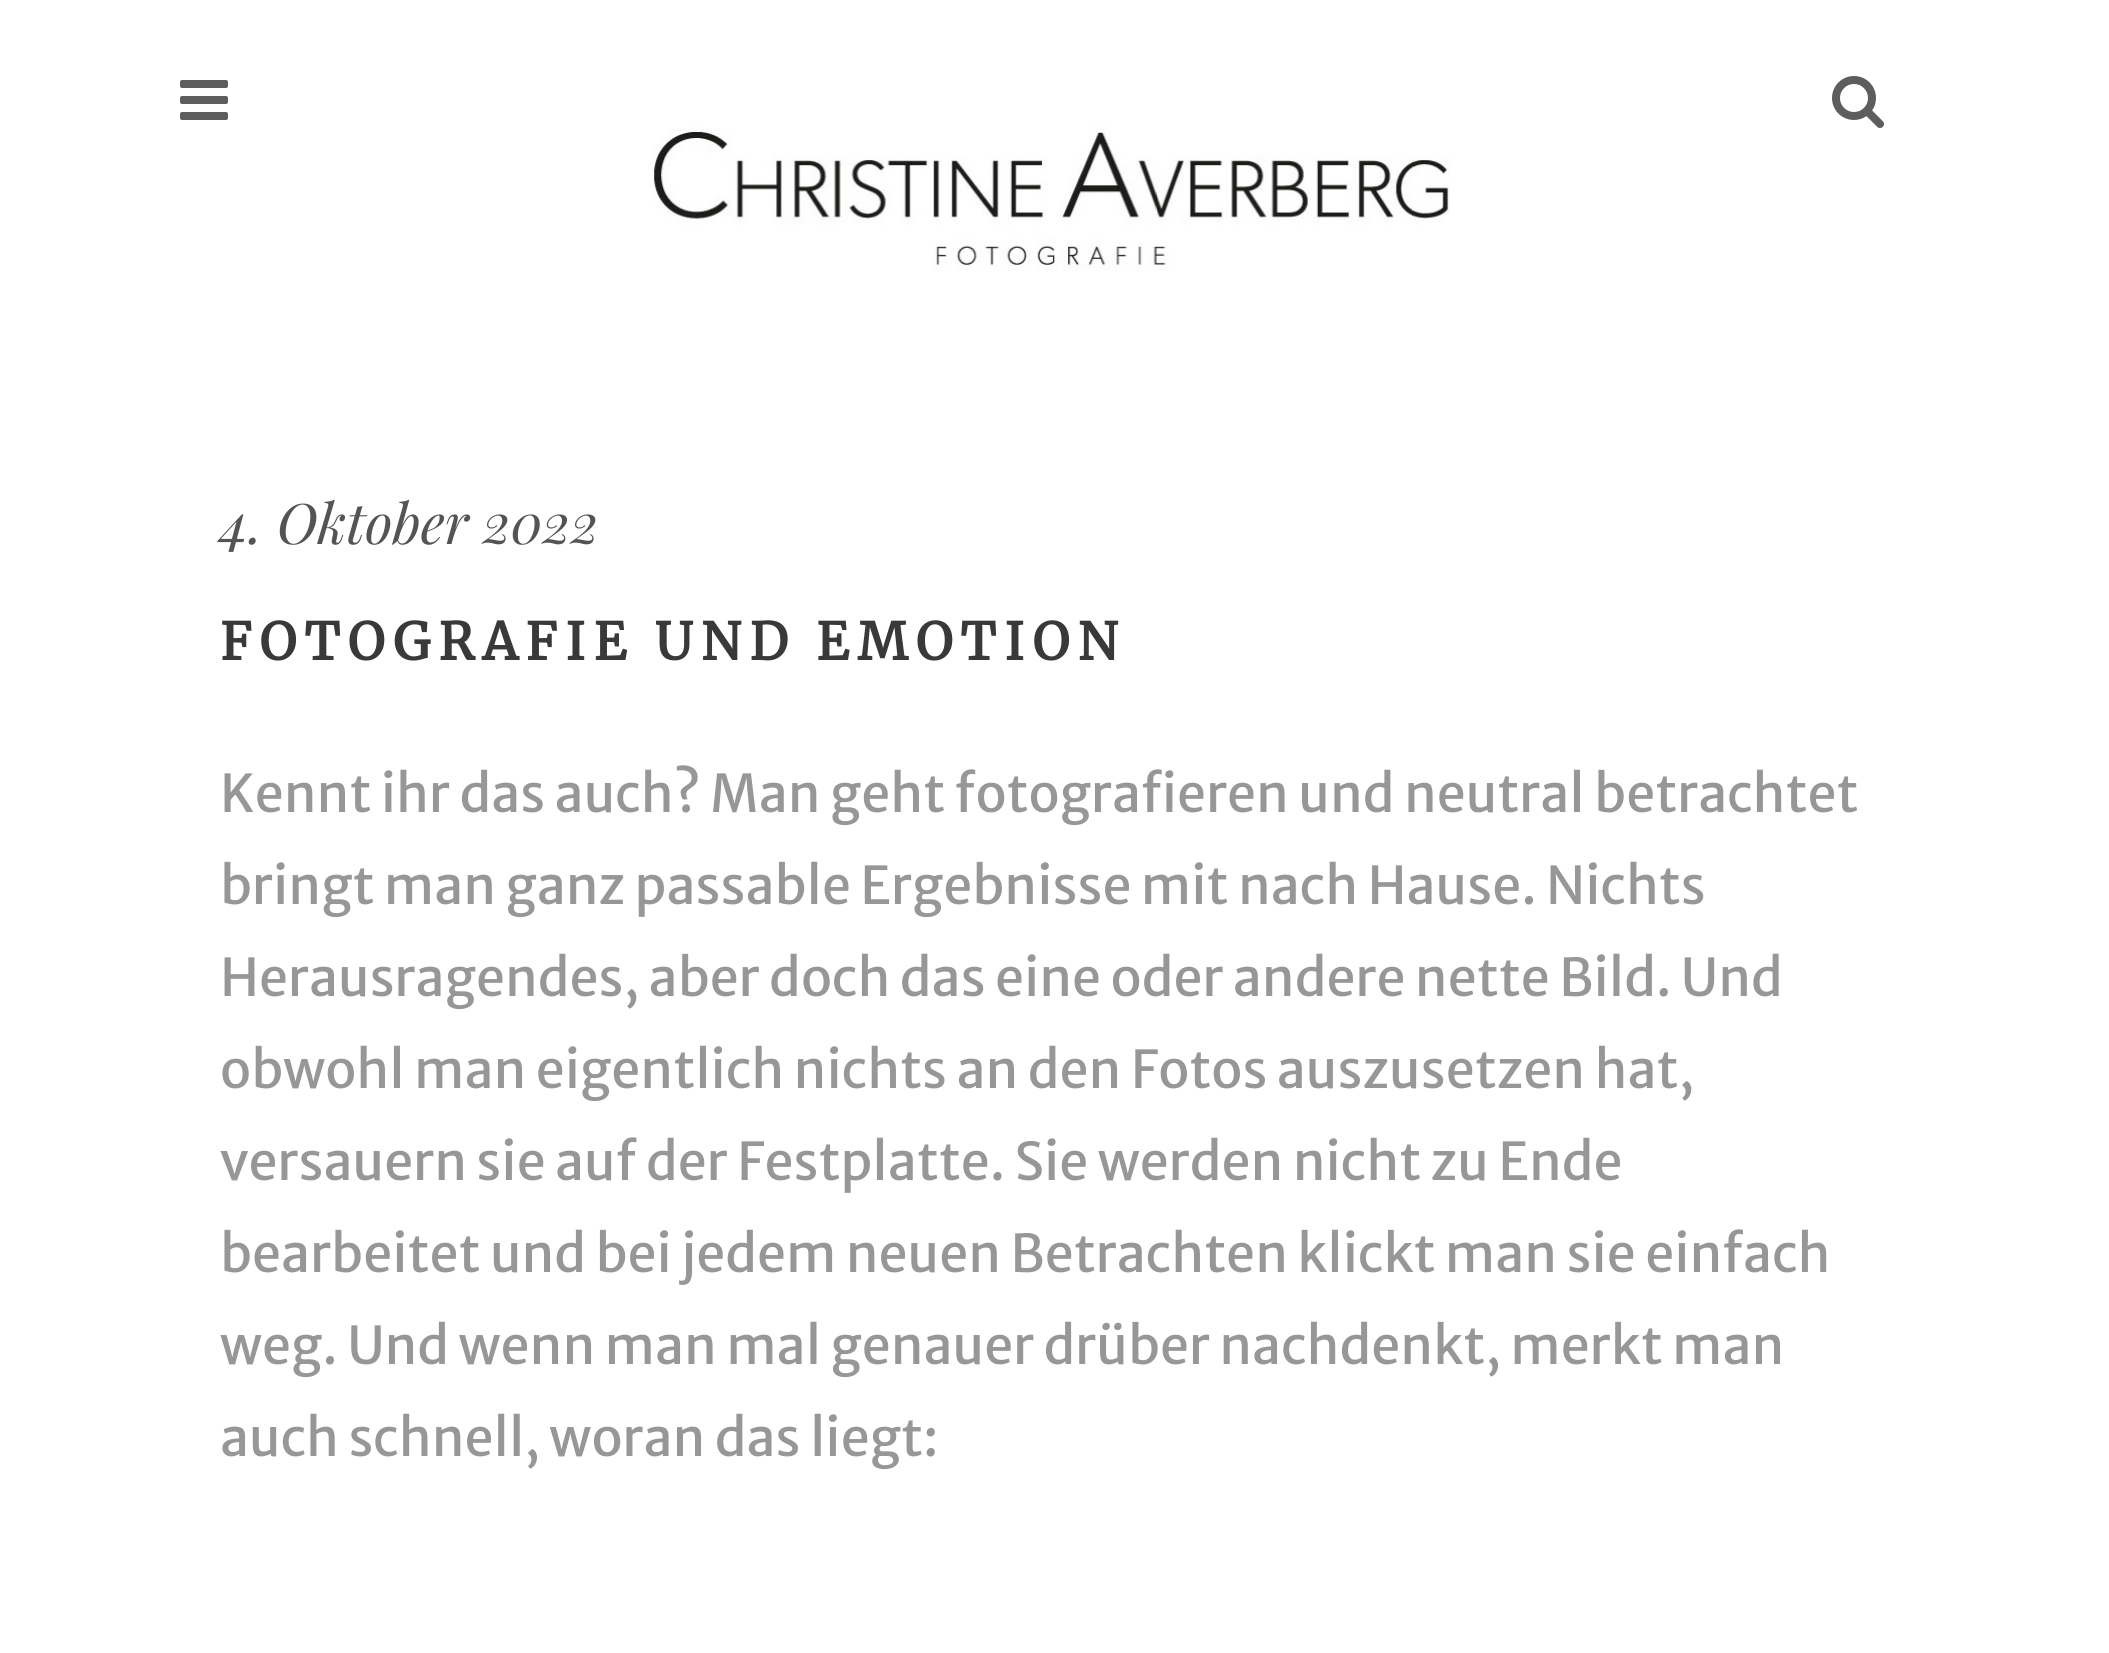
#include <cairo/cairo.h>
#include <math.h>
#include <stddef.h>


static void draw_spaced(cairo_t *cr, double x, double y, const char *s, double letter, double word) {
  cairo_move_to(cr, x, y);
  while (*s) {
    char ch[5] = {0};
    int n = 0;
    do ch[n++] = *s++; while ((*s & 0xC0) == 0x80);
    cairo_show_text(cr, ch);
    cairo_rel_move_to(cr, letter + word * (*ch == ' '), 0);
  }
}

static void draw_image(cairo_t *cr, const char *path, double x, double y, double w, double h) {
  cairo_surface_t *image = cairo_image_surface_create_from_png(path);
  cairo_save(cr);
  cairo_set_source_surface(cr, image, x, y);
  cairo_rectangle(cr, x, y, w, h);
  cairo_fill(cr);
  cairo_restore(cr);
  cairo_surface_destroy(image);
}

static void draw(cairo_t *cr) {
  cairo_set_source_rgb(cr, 1, 1, 1);
  cairo_paint(cr);
  draw_image(cr, "images/1.png", 180, 80, 48, 40);
  draw_image(cr, "images/2.png", 652, 127, 798, 144);
  draw_image(cr, "images/3.png", 1832, 76, 52, 52);
  cairo_select_font_face(cr, "Playfair Display", CAIRO_FONT_SLANT_ITALIC, CAIRO_FONT_WEIGHT_NORMAL);
  cairo_set_font_size(cr, 56);
  cairo_set_source_rgb(cr, 84 / 255.0, 84 / 255.0, 84 / 255.0);
  cairo_move_to(cr, 220, 544);
  cairo_show_text(cr, "4. Oktober 2022");
  cairo_select_font_face(cr, "Merriweather", CAIRO_FONT_SLANT_NORMAL, CAIRO_FONT_WEIGHT_BOLD);
  cairo_set_font_size(cr, 51);
  cairo_set_source_rgb(cr, 57 / 255.0, 57 / 255.0, 57 / 255.0);
  draw_spaced(cr, 220, 660, "FOTOGRAFIE UND EMOTION", 8, 0);
  cairo_select_font_face(cr, "Merriweather Sans", CAIRO_FONT_SLANT_NORMAL, CAIRO_FONT_WEIGHT_NORMAL);
  cairo_set_font_size(cr, 52);
  cairo_set_source_rgb(cr, 151 / 255.0, 151 / 255.0, 151 / 255.0);
  cairo_move_to(cr, 220, 812);
  cairo_show_text(cr, "Kennt ihr das auch? Man geht fotografieren und neutral betrachtet");
  cairo_move_to(cr, 220, 904);
  cairo_show_text(cr, "bringt man ganz passable Ergebnisse mit nach Hause. Nichts");
  cairo_move_to(cr, 220, 996);
  cairo_show_text(cr, "Herausragendes, aber doch das eine oder andere nette Bild. Und");
  cairo_move_to(cr, 220, 1088);
  cairo_show_text(cr, "obwohl man eigentlich nichts an den Fotos auszusetzen hat,");
  cairo_move_to(cr, 220, 1180);
  cairo_show_text(cr, "versauern sie auf der Festplatte. Sie werden nicht zu Ende");
  cairo_move_to(cr, 220, 1272);
  cairo_show_text(cr, "bearbeitet und bei jedem neuen Betrachten klickt man sie einfach");
  cairo_move_to(cr, 220, 1364);
  cairo_show_text(cr, "weg. Und wenn man mal genauer drüber nachdenkt, merkt man");
  cairo_move_to(cr, 220, 1456);
  cairo_show_text(cr, "auch schnell, woran das liegt:");
}

int main(void) {
  cairo_surface_t *surface = cairo_image_surface_create(CAIRO_FORMAT_RGB24, 2109, 1653);
  cairo_t *cr = cairo_create(surface);
  cairo_font_options_t *options = cairo_font_options_create();
  cairo_font_options_set_hint_metrics(options, CAIRO_HINT_METRICS_OFF);
  cairo_font_options_set_hint_style(options, CAIRO_HINT_STYLE_NONE);
  cairo_set_font_options(cr, options);
  cairo_set_miter_limit(cr, 4);
  draw(cr);
  cairo_surface_write_to_png(surface, "out.png");
  cairo_font_options_destroy(options);
  cairo_destroy(cr);
  cairo_surface_destroy(surface);
  return 0;
}
